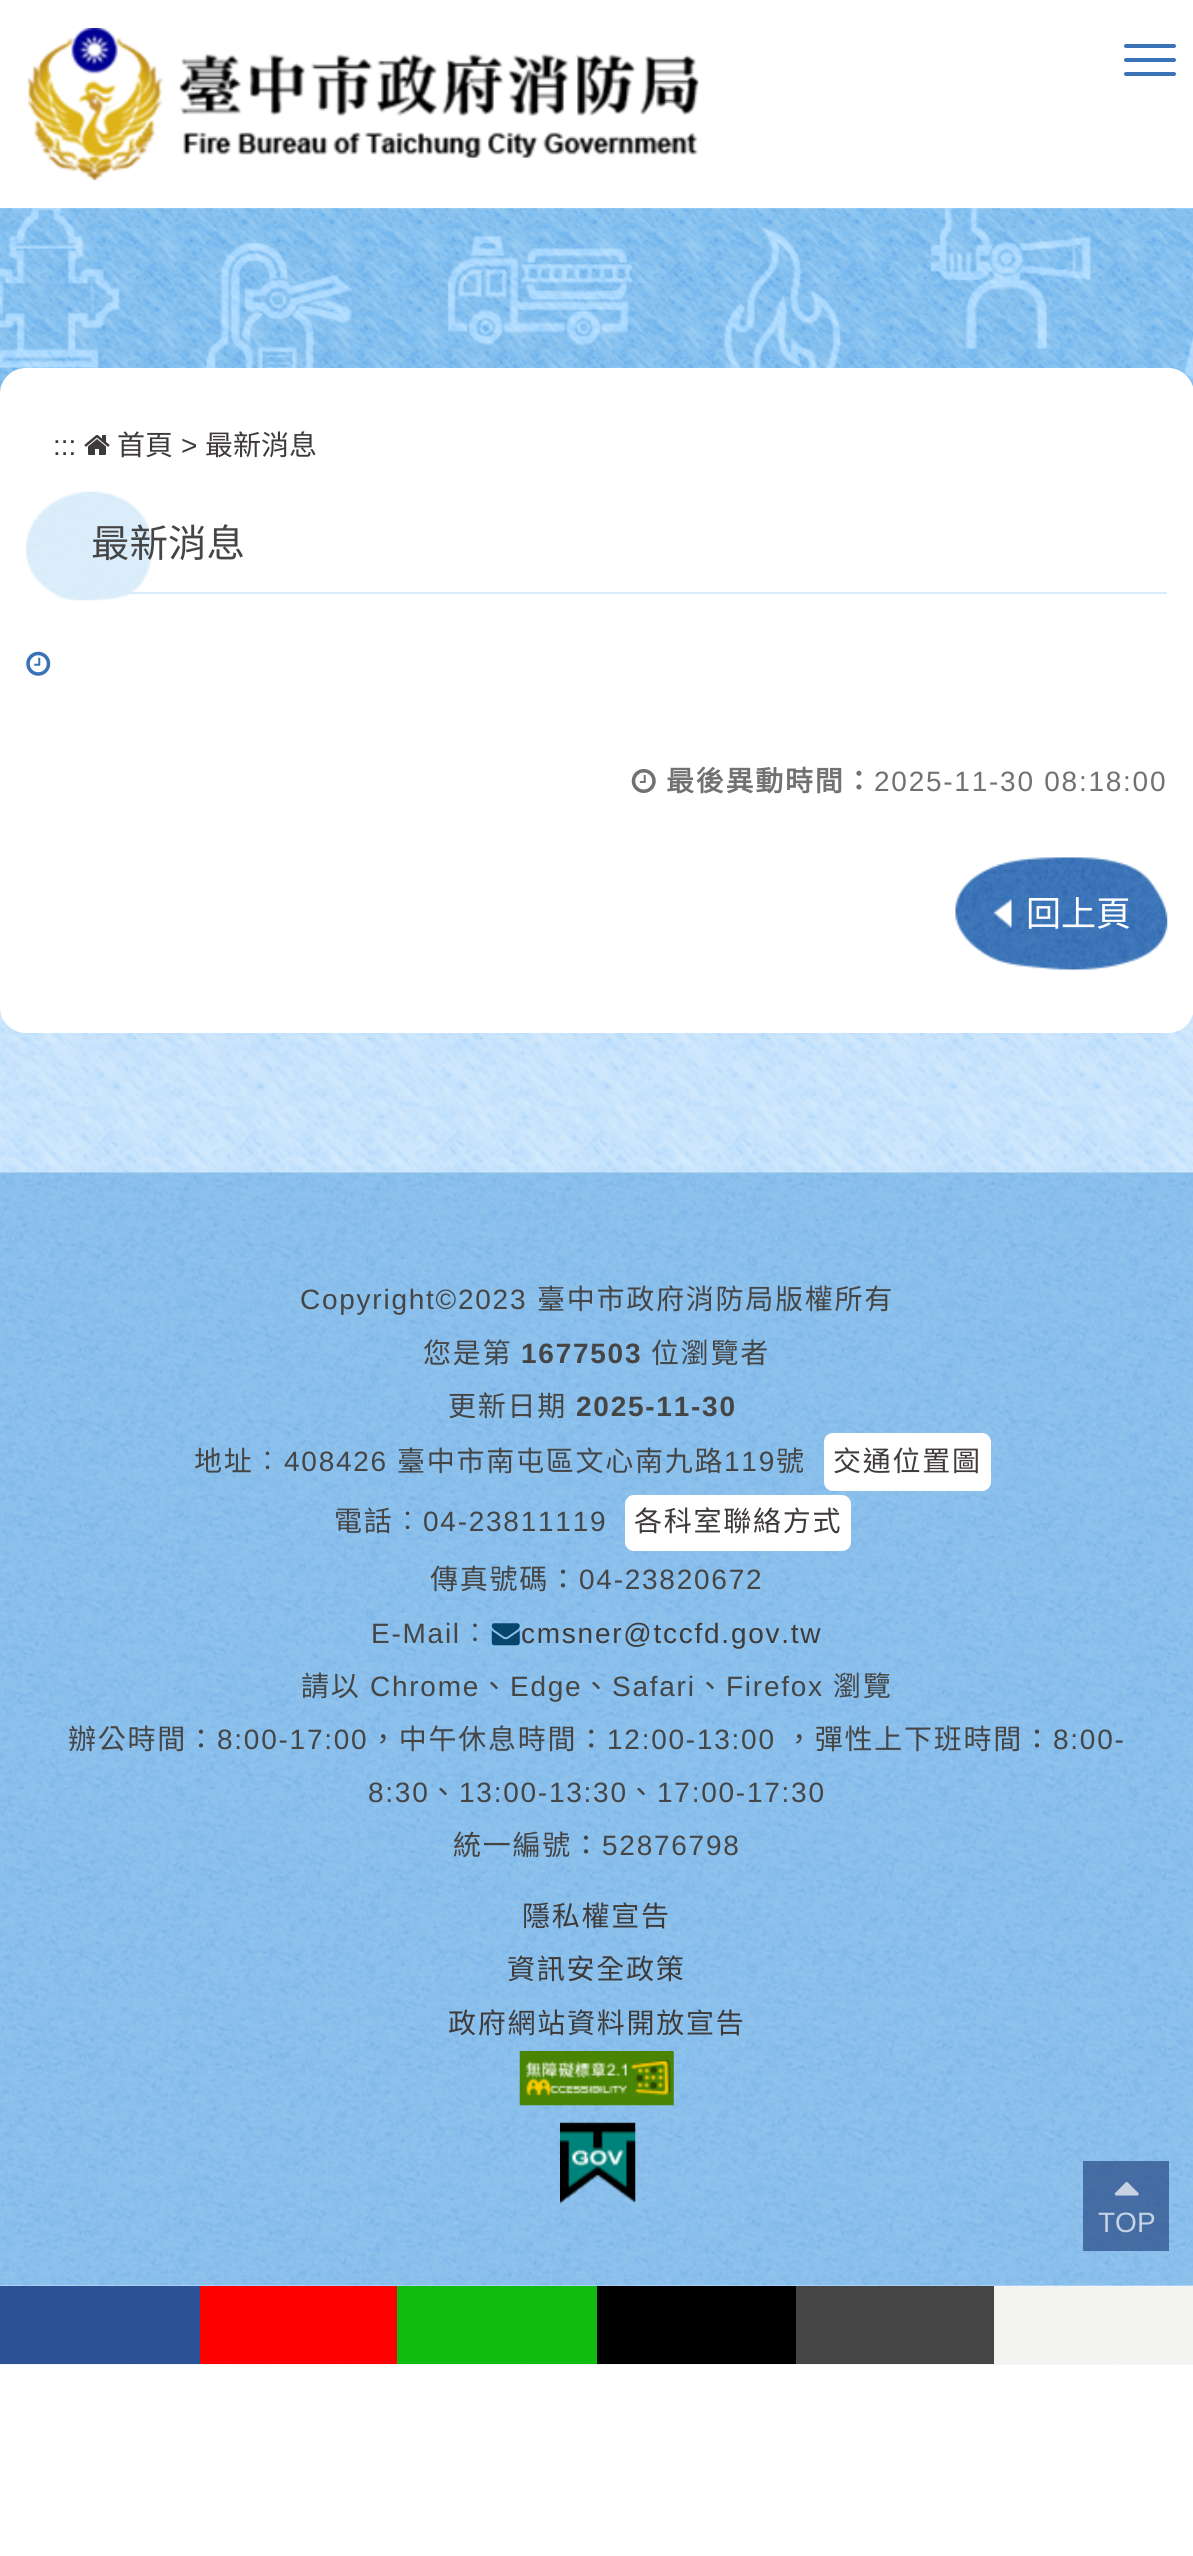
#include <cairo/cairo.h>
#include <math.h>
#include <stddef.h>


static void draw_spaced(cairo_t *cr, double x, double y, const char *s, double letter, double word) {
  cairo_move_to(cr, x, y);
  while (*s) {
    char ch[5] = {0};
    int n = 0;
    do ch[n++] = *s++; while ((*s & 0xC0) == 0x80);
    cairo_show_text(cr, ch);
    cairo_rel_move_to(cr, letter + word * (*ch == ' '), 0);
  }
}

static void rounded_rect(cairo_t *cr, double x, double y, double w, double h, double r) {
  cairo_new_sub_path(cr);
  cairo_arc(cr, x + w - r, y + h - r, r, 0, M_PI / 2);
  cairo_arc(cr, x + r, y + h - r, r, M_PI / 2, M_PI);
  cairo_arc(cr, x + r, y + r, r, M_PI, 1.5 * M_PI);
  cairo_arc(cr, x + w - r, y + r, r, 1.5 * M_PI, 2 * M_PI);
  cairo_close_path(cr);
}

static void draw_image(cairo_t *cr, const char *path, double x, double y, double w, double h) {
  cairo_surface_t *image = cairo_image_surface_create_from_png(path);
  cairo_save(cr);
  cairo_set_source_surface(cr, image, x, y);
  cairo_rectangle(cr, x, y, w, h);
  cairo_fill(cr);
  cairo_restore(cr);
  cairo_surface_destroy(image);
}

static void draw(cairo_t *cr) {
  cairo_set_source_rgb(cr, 1, 1, 1);
  cairo_paint(cr);
  draw_image(cr, "images/1.png", 0, 208, 1193, 2157);
  draw_image(cr, "images/2.png", 28, 28, 671, 153);
  cairo_set_source_rgb(cr, 57 / 255.0, 114 / 255.0, 183 / 255.0);
  rounded_rect(cr, 1124, 44, 52, 4, 2);
  cairo_fill(cr);
  rounded_rect(cr, 1124, 58, 52, 4, 2);
  cairo_fill(cr);
  rounded_rect(cr, 1124, 72, 52, 4, 2);
  cairo_fill(cr);
  draw_image(cr, "images/3.png", 0, 208, 1193, 186);
  cairo_set_source_rgb(cr, 1, 1, 1);
  rounded_rect(cr, 0, 368, 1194, 665, 26);
  cairo_fill(cr);
  draw_image(cr, "images/4.png", 84, 435, 26, 20);
  cairo_set_source_rgb(cr, 215 / 255.0, 236 / 255.0, 253 / 255.0);
  cairo_rectangle(cr, 26, 592, 1141, 2);
  cairo_fill(cr);
  draw_image(cr, "images/5.png", 26, 491, 127, 110);
  draw_image(cr, "images/6.png", 26, 651, 25, 25);
  draw_image(cr, "images/7.png", 631, 769, 25, 24);
  draw_image(cr, "images/8.png", 955, 857, 213, 113);
  draw_image(cr, "images/9.png", 994, 899, 18, 29);
  draw_image(cr, "images/10.png", 0, 1172, 1193, 1114);
  cairo_set_source_rgb(cr, 1, 1, 1);
  rounded_rect(cr, 824, 1433, 167, 58, 9);
  cairo_fill(cr);
  rounded_rect(cr, 625, 1495, 226, 56, 9);
  cairo_fill(cr);
  draw_image(cr, "images/11.png", 491, 1623, 29, 23);
  draw_image(cr, "images/12.png", 519, 2051, 155, 55);
  draw_image(cr, "images/13.png", 560, 2122, 76, 82);
  cairo_set_source_rgba(cr, 41 / 255.0, 74 / 255.0, 135 / 255.0, 0.7);
  cairo_rectangle(cr, 1083, 2161, 86, 90);
  cairo_fill(cr);
  draw_image(cr, "images/14.png", 1114, 2182, 25, 14);
  cairo_set_source_rgb(cr, 44 / 255.0, 81 / 255.0, 148 / 255.0);
  cairo_rectangle(cr, 0, 2286, 200, 78);
  cairo_fill(cr);
  cairo_set_source_rgb(cr, 254 / 255.0, 0, 0);
  cairo_rectangle(cr, 200, 2286, 197, 78);
  cairo_fill(cr);
  cairo_set_source_rgb(cr, 16 / 255.0, 188 / 255.0, 16 / 255.0);
  cairo_rectangle(cr, 397, 2286, 200, 78);
  cairo_fill(cr);
  cairo_set_source_rgb(cr, 0, 0, 0);
  cairo_rectangle(cr, 597, 2286, 199, 78);
  cairo_fill(cr);
  cairo_set_source_rgb(cr, 69 / 255.0, 69 / 255.0, 69 / 255.0);
  cairo_rectangle(cr, 796, 2286, 198, 78);
  cairo_fill(cr);
  cairo_set_source_rgb(cr, 243 / 255.0, 243 / 255.0, 242 / 255.0);
  cairo_rectangle(cr, 994, 2286, 199, 78);
  cairo_fill(cr);
  cairo_select_font_face(cr, "Liberation Sans", CAIRO_FONT_SLANT_NORMAL, CAIRO_FONT_WEIGHT_NORMAL);
  cairo_set_font_size(cr, 28);
  cairo_set_source_rgb(cr, 62 / 255.0, 58 / 255.0, 57 / 255.0);
  cairo_move_to(cr, 53, 455);
  cairo_show_text(cr, ":::");
  cairo_select_font_face(cr, "Noto Sans CJK TC", CAIRO_FONT_SLANT_NORMAL, CAIRO_FONT_WEIGHT_NORMAL);
  cairo_move_to(cr, 117, 455);
  cairo_show_text(cr, "首頁");
  cairo_select_font_face(cr, "Liberation Sans", CAIRO_FONT_SLANT_NORMAL, CAIRO_FONT_WEIGHT_NORMAL);
  cairo_move_to(cr, 181, 455);
  cairo_show_text(cr, ">");
  cairo_select_font_face(cr, "Noto Sans CJK TC", CAIRO_FONT_SLANT_NORMAL, CAIRO_FONT_WEIGHT_NORMAL);
  cairo_move_to(cr, 205, 455);
  cairo_show_text(cr, "最新消息");
  cairo_set_font_size(cr, 38.5);
  cairo_set_source_rgb(cr, 69 / 255.0, 69 / 255.0, 69 / 255.0);
  cairo_move_to(cr, 91, 557);
  cairo_show_text(cr, "最新消息");
  cairo_select_font_face(cr, "Noto Sans CJK TC", CAIRO_FONT_SLANT_NORMAL, CAIRO_FONT_WEIGHT_BOLD);
  cairo_set_font_size(cr, 28);
  cairo_set_source_rgb(cr, 113 / 255.0, 113 / 255.0, 113 / 255.0);
  draw_spaced(cr, 666, 791, "最後異動時間：", 1.75, 0);
  cairo_select_font_face(cr, "Liberation Sans", CAIRO_FONT_SLANT_NORMAL, CAIRO_FONT_WEIGHT_NORMAL);
  draw_spaced(cr, 874, 791, "2025-11-30 08:18:00", 1.75, 0);
  cairo_select_font_face(cr, "Noto Sans CJK TC", CAIRO_FONT_SLANT_NORMAL, CAIRO_FONT_WEIGHT_NORMAL);
  cairo_set_font_size(cr, 35);
  cairo_set_source_rgb(cr, 1, 1, 1);
  cairo_move_to(cr, 1026, 926);
  cairo_show_text(cr, "回上頁");
  cairo_select_font_face(cr, "Liberation Sans", CAIRO_FONT_SLANT_NORMAL, CAIRO_FONT_WEIGHT_NORMAL);
  cairo_set_font_size(cr, 28);
  cairo_set_source_rgb(cr, 69 / 255.0, 69 / 255.0, 69 / 255.0);
  draw_spaced(cr, 300, 1309, "Copyright©2023", 1.75, 0);
  cairo_select_font_face(cr, "Noto Sans CJK TC", CAIRO_FONT_SLANT_NORMAL, CAIRO_FONT_WEIGHT_NORMAL);
  draw_spaced(cr, 537, 1309, "臺中市政府消防局版權所有", 1.75, 0);
  draw_spaced(cr, 423, 1363, "您是第", 1.75, 0);
  cairo_select_font_face(cr, "Liberation Sans", CAIRO_FONT_SLANT_NORMAL, CAIRO_FONT_WEIGHT_BOLD);
  draw_spaced(cr, 521, 1363, "1677503", 1.75, 0);
  cairo_select_font_face(cr, "Noto Sans CJK TC", CAIRO_FONT_SLANT_NORMAL, CAIRO_FONT_WEIGHT_NORMAL);
  draw_spaced(cr, 651, 1363, "位瀏覽者", 1.75, 0);
  draw_spaced(cr, 448, 1416, "更新日期", 1.75, 0);
  cairo_select_font_face(cr, "Liberation Sans", CAIRO_FONT_SLANT_NORMAL, CAIRO_FONT_WEIGHT_BOLD);
  draw_spaced(cr, 576, 1416, "2025-11-30", 1.75, 0);
  cairo_select_font_face(cr, "Noto Sans CJK TC", CAIRO_FONT_SLANT_NORMAL, CAIRO_FONT_WEIGHT_NORMAL);
  draw_spaced(cr, 194, 1471, "地址︰", 1.75, 0);
  cairo_select_font_face(cr, "Liberation Sans", CAIRO_FONT_SLANT_NORMAL, CAIRO_FONT_WEIGHT_NORMAL);
  draw_spaced(cr, 284, 1471, "408426", 1.75, 0);
  cairo_select_font_face(cr, "Noto Sans CJK TC", CAIRO_FONT_SLANT_NORMAL, CAIRO_FONT_WEIGHT_NORMAL);
  draw_spaced(cr, 397, 1471, "臺中市南屯區文心南九路", 1.75, 0);
  cairo_select_font_face(cr, "Liberation Sans", CAIRO_FONT_SLANT_NORMAL, CAIRO_FONT_WEIGHT_NORMAL);
  draw_spaced(cr, 724, 1471, "119", 1.75, 0);
  cairo_select_font_face(cr, "Noto Sans CJK TC", CAIRO_FONT_SLANT_NORMAL, CAIRO_FONT_WEIGHT_NORMAL);
  draw_spaced(cr, 776, 1471, "號", 1.75, 0);
  cairo_set_source_rgb(cr, 62 / 255.0, 58 / 255.0, 57 / 255.0);
  draw_spaced(cr, 833, 1471, "交通位置圖", 1.75, 0);
  cairo_set_source_rgb(cr, 69 / 255.0, 69 / 255.0, 69 / 255.0);
  draw_spaced(cr, 334, 1531, "電話︰", 1.75, 0);
  cairo_select_font_face(cr, "Liberation Sans", CAIRO_FONT_SLANT_NORMAL, CAIRO_FONT_WEIGHT_NORMAL);
  draw_spaced(cr, 423, 1531, "04-23811119", 1.75, 0);
  cairo_select_font_face(cr, "Noto Sans CJK TC", CAIRO_FONT_SLANT_NORMAL, CAIRO_FONT_WEIGHT_NORMAL);
  cairo_set_source_rgb(cr, 62 / 255.0, 58 / 255.0, 57 / 255.0);
  draw_spaced(cr, 634, 1531, "各科室聯絡方式", 1.75, 0);
  cairo_set_source_rgb(cr, 69 / 255.0, 69 / 255.0, 69 / 255.0);
  draw_spaced(cr, 430, 1589, "傳真號碼：", 1.75, 0);
  cairo_select_font_face(cr, "Liberation Sans", CAIRO_FONT_SLANT_NORMAL, CAIRO_FONT_WEIGHT_NORMAL);
  draw_spaced(cr, 579, 1589, "04-23820672", 1.75, 0);
  draw_spaced(cr, 371, 1643, "E-Mail", 1.75, 0);
  cairo_select_font_face(cr, "Noto Sans CJK TC", CAIRO_FONT_SLANT_NORMAL, CAIRO_FONT_WEIGHT_NORMAL);
  draw_spaced(cr, 461, 1643, "︰", 1.75, 0);
  cairo_select_font_face(cr, "Liberation Sans", CAIRO_FONT_SLANT_NORMAL, CAIRO_FONT_WEIGHT_NORMAL);
  cairo_set_source_rgb(cr, 62 / 255.0, 58 / 255.0, 57 / 255.0);
  draw_spaced(cr, 521, 1643, "cmsner@tccfd.gov.tw", 1.75, 0);
  cairo_select_font_face(cr, "Noto Sans CJK TC", CAIRO_FONT_SLANT_NORMAL, CAIRO_FONT_WEIGHT_NORMAL);
  cairo_set_source_rgb(cr, 69 / 255.0, 69 / 255.0, 69 / 255.0);
  draw_spaced(cr, 301, 1696, "請以", 1.75, 0);
  cairo_select_font_face(cr, "Liberation Sans", CAIRO_FONT_SLANT_NORMAL, CAIRO_FONT_WEIGHT_NORMAL);
  draw_spaced(cr, 370, 1696, "Chrome", 1.75, 0);
  cairo_select_font_face(cr, "Noto Sans CJK TC", CAIRO_FONT_SLANT_NORMAL, CAIRO_FONT_WEIGHT_NORMAL);
  draw_spaced(cr, 480, 1696, "、", 1.75, 0);
  cairo_select_font_face(cr, "Liberation Sans", CAIRO_FONT_SLANT_NORMAL, CAIRO_FONT_WEIGHT_NORMAL);
  draw_spaced(cr, 510, 1696, "Edge", 1.75, 0);
  cairo_select_font_face(cr, "Noto Sans CJK TC", CAIRO_FONT_SLANT_NORMAL, CAIRO_FONT_WEIGHT_NORMAL);
  draw_spaced(cr, 582, 1696, "、", 1.75, 0);
  cairo_select_font_face(cr, "Liberation Sans", CAIRO_FONT_SLANT_NORMAL, CAIRO_FONT_WEIGHT_NORMAL);
  draw_spaced(cr, 612, 1696, "Safari", 1.75, 0);
  cairo_select_font_face(cr, "Noto Sans CJK TC", CAIRO_FONT_SLANT_NORMAL, CAIRO_FONT_WEIGHT_NORMAL);
  draw_spaced(cr, 696, 1696, "、", 1.75, 0);
  cairo_select_font_face(cr, "Liberation Sans", CAIRO_FONT_SLANT_NORMAL, CAIRO_FONT_WEIGHT_NORMAL);
  draw_spaced(cr, 726, 1696, "Firefox", 1.75, 0);
  cairo_select_font_face(cr, "Noto Sans CJK TC", CAIRO_FONT_SLANT_NORMAL, CAIRO_FONT_WEIGHT_NORMAL);
  draw_spaced(cr, 833, 1696, "瀏覽", 1.75, 0);
  draw_spaced(cr, 68, 1749, "辦公時間：", 1.75, 0);
  cairo_select_font_face(cr, "Liberation Sans", CAIRO_FONT_SLANT_NORMAL, CAIRO_FONT_WEIGHT_NORMAL);
  draw_spaced(cr, 217, 1749, "8:00-17:00", 1.75, 0);
  cairo_select_font_face(cr, "Noto Sans CJK TC", CAIRO_FONT_SLANT_NORMAL, CAIRO_FONT_WEIGHT_NORMAL);
  draw_spaced(cr, 369, 1749, "，中午休息時間：", 1.75, 0);
  cairo_select_font_face(cr, "Liberation Sans", CAIRO_FONT_SLANT_NORMAL, CAIRO_FONT_WEIGHT_NORMAL);
  draw_spaced(cr, 607, 1749, "12:00-13:00", 1.75, 0);
  cairo_select_font_face(cr, "Noto Sans CJK TC", CAIRO_FONT_SLANT_NORMAL, CAIRO_FONT_WEIGHT_NORMAL);
  draw_spaced(cr, 785, 1749, "，彈性上下班時間：", 1.75, 0);
  cairo_select_font_face(cr, "Liberation Sans", CAIRO_FONT_SLANT_NORMAL, CAIRO_FONT_WEIGHT_NORMAL);
  draw_spaced(cr, 1053, 1749, "8:00-", 1.75, 0);
  draw_spaced(cr, 368, 1802, "8:30", 1.75, 0);
  cairo_select_font_face(cr, "Noto Sans CJK TC", CAIRO_FONT_SLANT_NORMAL, CAIRO_FONT_WEIGHT_NORMAL);
  draw_spaced(cr, 429, 1802, "、", 1.75, 0);
  cairo_select_font_face(cr, "Liberation Sans", CAIRO_FONT_SLANT_NORMAL, CAIRO_FONT_WEIGHT_NORMAL);
  draw_spaced(cr, 459, 1802, "13:00-13:30", 1.75, 0);
  cairo_select_font_face(cr, "Noto Sans CJK TC", CAIRO_FONT_SLANT_NORMAL, CAIRO_FONT_WEIGHT_NORMAL);
  draw_spaced(cr, 627, 1802, "、", 1.75, 0);
  cairo_select_font_face(cr, "Liberation Sans", CAIRO_FONT_SLANT_NORMAL, CAIRO_FONT_WEIGHT_NORMAL);
  draw_spaced(cr, 657, 1802, "17:00-17:30", 1.75, 0);
  cairo_select_font_face(cr, "Noto Sans CJK TC", CAIRO_FONT_SLANT_NORMAL, CAIRO_FONT_WEIGHT_NORMAL);
  draw_spaced(cr, 453, 1855, "統一編號：", 1.75, 0);
  cairo_select_font_face(cr, "Liberation Sans", CAIRO_FONT_SLANT_NORMAL, CAIRO_FONT_WEIGHT_NORMAL);
  draw_spaced(cr, 602, 1855, "52876798", 1.75, 0);
  cairo_select_font_face(cr, "Noto Sans CJK TC", CAIRO_FONT_SLANT_NORMAL, CAIRO_FONT_WEIGHT_NORMAL);
  cairo_set_source_rgb(cr, 62 / 255.0, 58 / 255.0, 57 / 255.0);
  draw_spaced(cr, 522, 1926, "隱私權宣告", 1.75, 0);
  draw_spaced(cr, 507, 1979, "資訊安全政策", 1.75, 0);
  draw_spaced(cr, 448, 2033, "政府網站資料開放宣告", 1.75, 0);
  cairo_select_font_face(cr, "Liberation Sans", CAIRO_FONT_SLANT_NORMAL, CAIRO_FONT_WEIGHT_NORMAL);
  cairo_set_source_rgb(cr, 199 / 255.0, 211 / 255.0, 228 / 255.0);
  cairo_move_to(cr, 1098, 2232);
  cairo_show_text(cr, "TOP");
}

int main(void) {
  cairo_surface_t *surface = cairo_image_surface_create(CAIRO_FORMAT_RGB24, 1193, 2556);
  cairo_t *cr = cairo_create(surface);
  cairo_font_options_t *options = cairo_font_options_create();
  cairo_font_options_set_hint_metrics(options, CAIRO_HINT_METRICS_OFF);
  cairo_font_options_set_hint_style(options, CAIRO_HINT_STYLE_NONE);
  cairo_set_font_options(cr, options);
  cairo_set_miter_limit(cr, 4);
  draw(cr);
  cairo_surface_write_to_png(surface, "out.png");
  cairo_font_options_destroy(options);
  cairo_destroy(cr);
  cairo_surface_destroy(surface);
  return 0;
}
